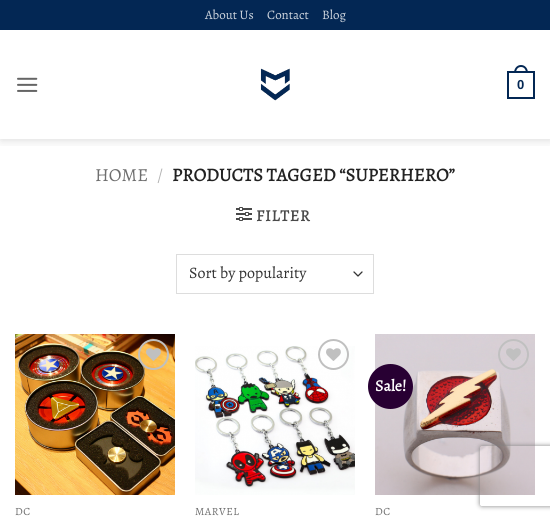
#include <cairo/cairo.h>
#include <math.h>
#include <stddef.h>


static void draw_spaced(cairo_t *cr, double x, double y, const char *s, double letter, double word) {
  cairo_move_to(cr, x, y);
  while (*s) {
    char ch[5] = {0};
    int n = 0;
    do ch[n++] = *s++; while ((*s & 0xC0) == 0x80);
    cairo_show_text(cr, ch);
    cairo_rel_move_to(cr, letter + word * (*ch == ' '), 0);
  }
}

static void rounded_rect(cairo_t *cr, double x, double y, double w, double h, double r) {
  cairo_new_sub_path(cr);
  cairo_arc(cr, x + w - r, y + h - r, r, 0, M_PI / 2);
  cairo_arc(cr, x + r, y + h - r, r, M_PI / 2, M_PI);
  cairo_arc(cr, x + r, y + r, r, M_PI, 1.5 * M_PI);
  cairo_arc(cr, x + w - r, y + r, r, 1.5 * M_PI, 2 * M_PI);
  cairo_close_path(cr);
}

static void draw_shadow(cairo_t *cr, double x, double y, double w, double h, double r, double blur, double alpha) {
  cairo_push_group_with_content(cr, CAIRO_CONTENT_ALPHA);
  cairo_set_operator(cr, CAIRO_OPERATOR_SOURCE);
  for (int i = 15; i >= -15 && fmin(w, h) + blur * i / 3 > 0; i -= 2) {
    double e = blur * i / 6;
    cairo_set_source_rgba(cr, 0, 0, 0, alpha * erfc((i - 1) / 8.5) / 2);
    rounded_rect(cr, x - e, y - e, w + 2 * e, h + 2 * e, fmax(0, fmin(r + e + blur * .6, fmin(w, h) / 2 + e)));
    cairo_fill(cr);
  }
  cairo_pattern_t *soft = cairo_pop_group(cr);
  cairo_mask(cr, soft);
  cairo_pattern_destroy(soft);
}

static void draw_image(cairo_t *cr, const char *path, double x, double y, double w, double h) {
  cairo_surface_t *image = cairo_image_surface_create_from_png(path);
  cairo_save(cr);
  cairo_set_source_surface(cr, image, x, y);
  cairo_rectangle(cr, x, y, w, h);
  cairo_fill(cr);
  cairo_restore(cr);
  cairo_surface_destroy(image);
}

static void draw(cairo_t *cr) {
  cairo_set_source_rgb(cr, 1, 1, 1);
  cairo_paint(cr);
  cairo_save(cr);
  cairo_rectangle(cr, 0, 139, 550, 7);
  cairo_clip(cr);
  cairo_set_source_rgb(cr, 0, 0, 0);
  draw_shadow(cr, 1, 1, 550, 139, 0, 5, 0.15);
  cairo_restore(cr);
  cairo_set_source_rgb(cr, 3 / 255.0, 39 / 255.0, 84 / 255.0);
  cairo_rectangle(cr, 0, 0, 550, 30);
  cairo_fill(cr);
  draw_image(cr, "images/1.png", 17, 77, 21, 15);
  draw_image(cr, "images/2.png", 260, 68, 30, 33);
  cairo_rectangle(cr, 508, 72, 26, 26);
  cairo_stroke(cr);
  cairo_set_fill_rule(cr, CAIRO_FILL_RULE_EVEN_ODD);
  cairo_new_path(cr);
  cairo_move_to(cr, 521, 65);
  cairo_curve_to(cr, 525.5, 65, 528, 69, 528, 73);
  cairo_line_to(cr, 514, 73);
  cairo_curve_to(cr, 514, 69, 516.5, 65, 521, 65);
  cairo_close_path(cr);
  cairo_move_to(cr, 521, 67);
  cairo_curve_to(cr, 524.5, 67, 526, 70, 526, 73);
  cairo_line_to(cr, 516, 73);
  cairo_curve_to(cr, 516, 70, 517.5, 67, 521, 67);
  cairo_close_path(cr);
  cairo_fill(cr);
  draw_image(cr, "images/3.png", 236, 207, 16, 14);
  cairo_new_path(cr);
  cairo_move_to(cr, 354, 272);
  cairo_line_to(cr, 358, 276);
  cairo_line_to(cr, 362, 272);
  cairo_set_source_rgb(cr, 51 / 255.0, 51 / 255.0, 51 / 255.0);
  cairo_set_line_width(cr, 1.3);
  cairo_set_line_cap(cr, CAIRO_LINE_CAP_ROUND);
  cairo_set_line_join(cr, CAIRO_LINE_JOIN_ROUND);
  cairo_stroke(cr);
  cairo_rectangle(cr, 176.5, 254.5, 197, 39);
  cairo_set_source_rgb(cr, 221 / 255.0, 221 / 255.0, 221 / 255.0);
  cairo_set_line_width(cr, 1);
  cairo_set_line_cap(cr, CAIRO_LINE_CAP_BUTT);
  cairo_set_line_join(cr, CAIRO_LINE_JOIN_MITER);
  cairo_stroke(cr);
  draw_image(cr, "images/4.png", 15, 334, 160, 161);
  cairo_arc(cr, 153.5, 354.5, 14.5, 0, 2 * M_PI);
  cairo_set_source_rgb(cr, 192 / 255.0, 192 / 255.0, 192 / 255.0);
  cairo_set_line_width(cr, 2);
  cairo_stroke(cr);
  draw_image(cr, "images/5.png", 146, 348, 15, 13);
  draw_image(cr, "images/7.png", 195, 346, 160, 149);
  cairo_arc(cr, 333.5, 354.5, 14.5, 0, 2 * M_PI);
  cairo_stroke(cr);
  draw_image(cr, "images/6.png", 326, 348, 15, 13);
  draw_image(cr, "images/8.png", 375, 334, 160, 161);
  cairo_set_source_rgb(cr, 40 / 255.0, 0, 51 / 255.0);
  cairo_arc(cr, 390.5, 386.5, 22.5, 0, 2 * M_PI);
  cairo_fill(cr);
  cairo_arc(cr, 513.5, 354.5, 14.5, 0, 2 * M_PI);
  cairo_set_source_rgb(cr, 192 / 255.0, 192 / 255.0, 192 / 255.0);
  cairo_stroke(cr);
  draw_image(cr, "images/9.png", 506, 348, 15, 13);
  cairo_save(cr);
  cairo_new_path(cr);
  cairo_move_to(cr, 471, 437);
  cairo_line_to(cr, 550, 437);
  cairo_line_to(cr, 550, 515);
  cairo_line_to(cr, 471, 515);
  cairo_close_path(cr);
  cairo_move_to(cr, 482, 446);
  cairo_line_to(cr, 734, 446);
  cairo_curve_to(cr, 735, 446, 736, 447, 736, 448);
  cairo_line_to(cr, 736, 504);
  cairo_curve_to(cr, 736, 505, 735, 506, 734, 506);
  cairo_line_to(cr, 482, 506);
  cairo_curve_to(cr, 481, 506, 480, 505, 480, 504);
  cairo_line_to(cr, 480, 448);
  cairo_curve_to(cr, 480, 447, 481, 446, 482, 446);
  cairo_close_path(cr);
  cairo_clip(cr);
  cairo_set_source_rgb(cr, 128 / 255.0, 128 / 255.0, 128 / 255.0);
  draw_shadow(cr, 480, 446, 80, 60, 2, 2.5, 1);
  cairo_restore(cr);
  cairo_select_font_face(cr, "Alegreya", CAIRO_FONT_SLANT_NORMAL, CAIRO_FONT_WEIGHT_NORMAL);
  cairo_set_font_size(cr, 13);
  cairo_set_source_rgb(cr, 205 / 255.0, 212 / 255.0, 221 / 255.0);
  cairo_move_to(cr, 205, 19);
  cairo_show_text(cr, "About Us");
  cairo_move_to(cr, 267, 19);
  cairo_show_text(cr, "Contact");
  cairo_move_to(cr, 322, 19);
  cairo_show_text(cr, "Blog");
  cairo_select_font_face(cr, "Liberation Sans", CAIRO_FONT_SLANT_NORMAL, CAIRO_FONT_WEIGHT_BOLD);
  cairo_set_source_rgb(cr, 3 / 255.0, 39 / 255.0, 84 / 255.0);
  cairo_move_to(cr, 517, 89);
  cairo_show_text(cr, "0");
  cairo_select_font_face(cr, "Alegreya", CAIRO_FONT_SLANT_NORMAL, CAIRO_FONT_WEIGHT_NORMAL);
  cairo_set_font_size(cr, 18.4);
  cairo_set_source_rgb(cr, 110 / 255.0, 110 / 255.0, 110 / 255.0);
  cairo_move_to(cr, 95, 181);
  cairo_show_text(cr, "HOME");
  cairo_set_source_rgb(cr, 178 / 255.0, 178 / 255.0, 178 / 255.0);
  cairo_move_to(cr, 157, 181);
  cairo_show_text(cr, "/");
  cairo_select_font_face(cr, "Alegreya", CAIRO_FONT_SLANT_NORMAL, CAIRO_FONT_WEIGHT_BOLD);
  cairo_set_source_rgb(cr, 34 / 255.0, 34 / 255.0, 34 / 255.0);
  cairo_move_to(cr, 172, 181);
  cairo_show_text(cr, "PRODUCTS TAGGED “SUPERHERO”");
  cairo_set_font_size(cr, 16);
  cairo_set_source_rgb(cr, 74 / 255.0, 74 / 255.0, 74 / 255.0);
  draw_spaced(cr, 256, 221, "FILTER", 0.75, 0);
  cairo_select_font_face(cr, "Alegreya", CAIRO_FONT_SLANT_NORMAL, CAIRO_FONT_WEIGHT_NORMAL);
  cairo_set_source_rgb(cr, 51 / 255.0, 51 / 255.0, 51 / 255.0);
  cairo_move_to(cr, 189, 278);
  cairo_show_text(cr, "Sort by popularity");
  cairo_set_font_size(cr, 11);
  cairo_set_source_rgb(cr, 110 / 255.0, 110 / 255.0, 110 / 255.0);
  draw_spaced(cr, 15, 515, "DC", 0.5, 0);
  draw_spaced(cr, 195, 515, "MARVEL", 0.5, 0);
  cairo_select_font_face(cr, "Alegreya", CAIRO_FONT_SLANT_NORMAL, CAIRO_FONT_WEIGHT_BOLD);
  cairo_set_font_size(cr, 16);
  cairo_set_source_rgb(cr, 1, 1, 1);
  cairo_move_to(cr, 375, 391);
  cairo_show_text(cr, "Sale!");
  cairo_select_font_face(cr, "Alegreya", CAIRO_FONT_SLANT_NORMAL, CAIRO_FONT_WEIGHT_NORMAL);
  cairo_set_font_size(cr, 11);
  cairo_set_source_rgb(cr, 110 / 255.0, 110 / 255.0, 110 / 255.0);
  draw_spaced(cr, 375, 515, "DC", 0.5, 0);
}

int main(void) {
  cairo_surface_t *surface = cairo_image_surface_create(CAIRO_FORMAT_RGB24, 550, 520);
  cairo_t *cr = cairo_create(surface);
  cairo_font_options_t *options = cairo_font_options_create();
  cairo_font_options_set_hint_metrics(options, CAIRO_HINT_METRICS_OFF);
  cairo_font_options_set_hint_style(options, CAIRO_HINT_STYLE_NONE);
  cairo_set_font_options(cr, options);
  cairo_set_miter_limit(cr, 4);
  draw(cr);
  cairo_surface_write_to_png(surface, "out.png");
  cairo_font_options_destroy(options);
  cairo_destroy(cr);
  cairo_surface_destroy(surface);
  return 0;
}
